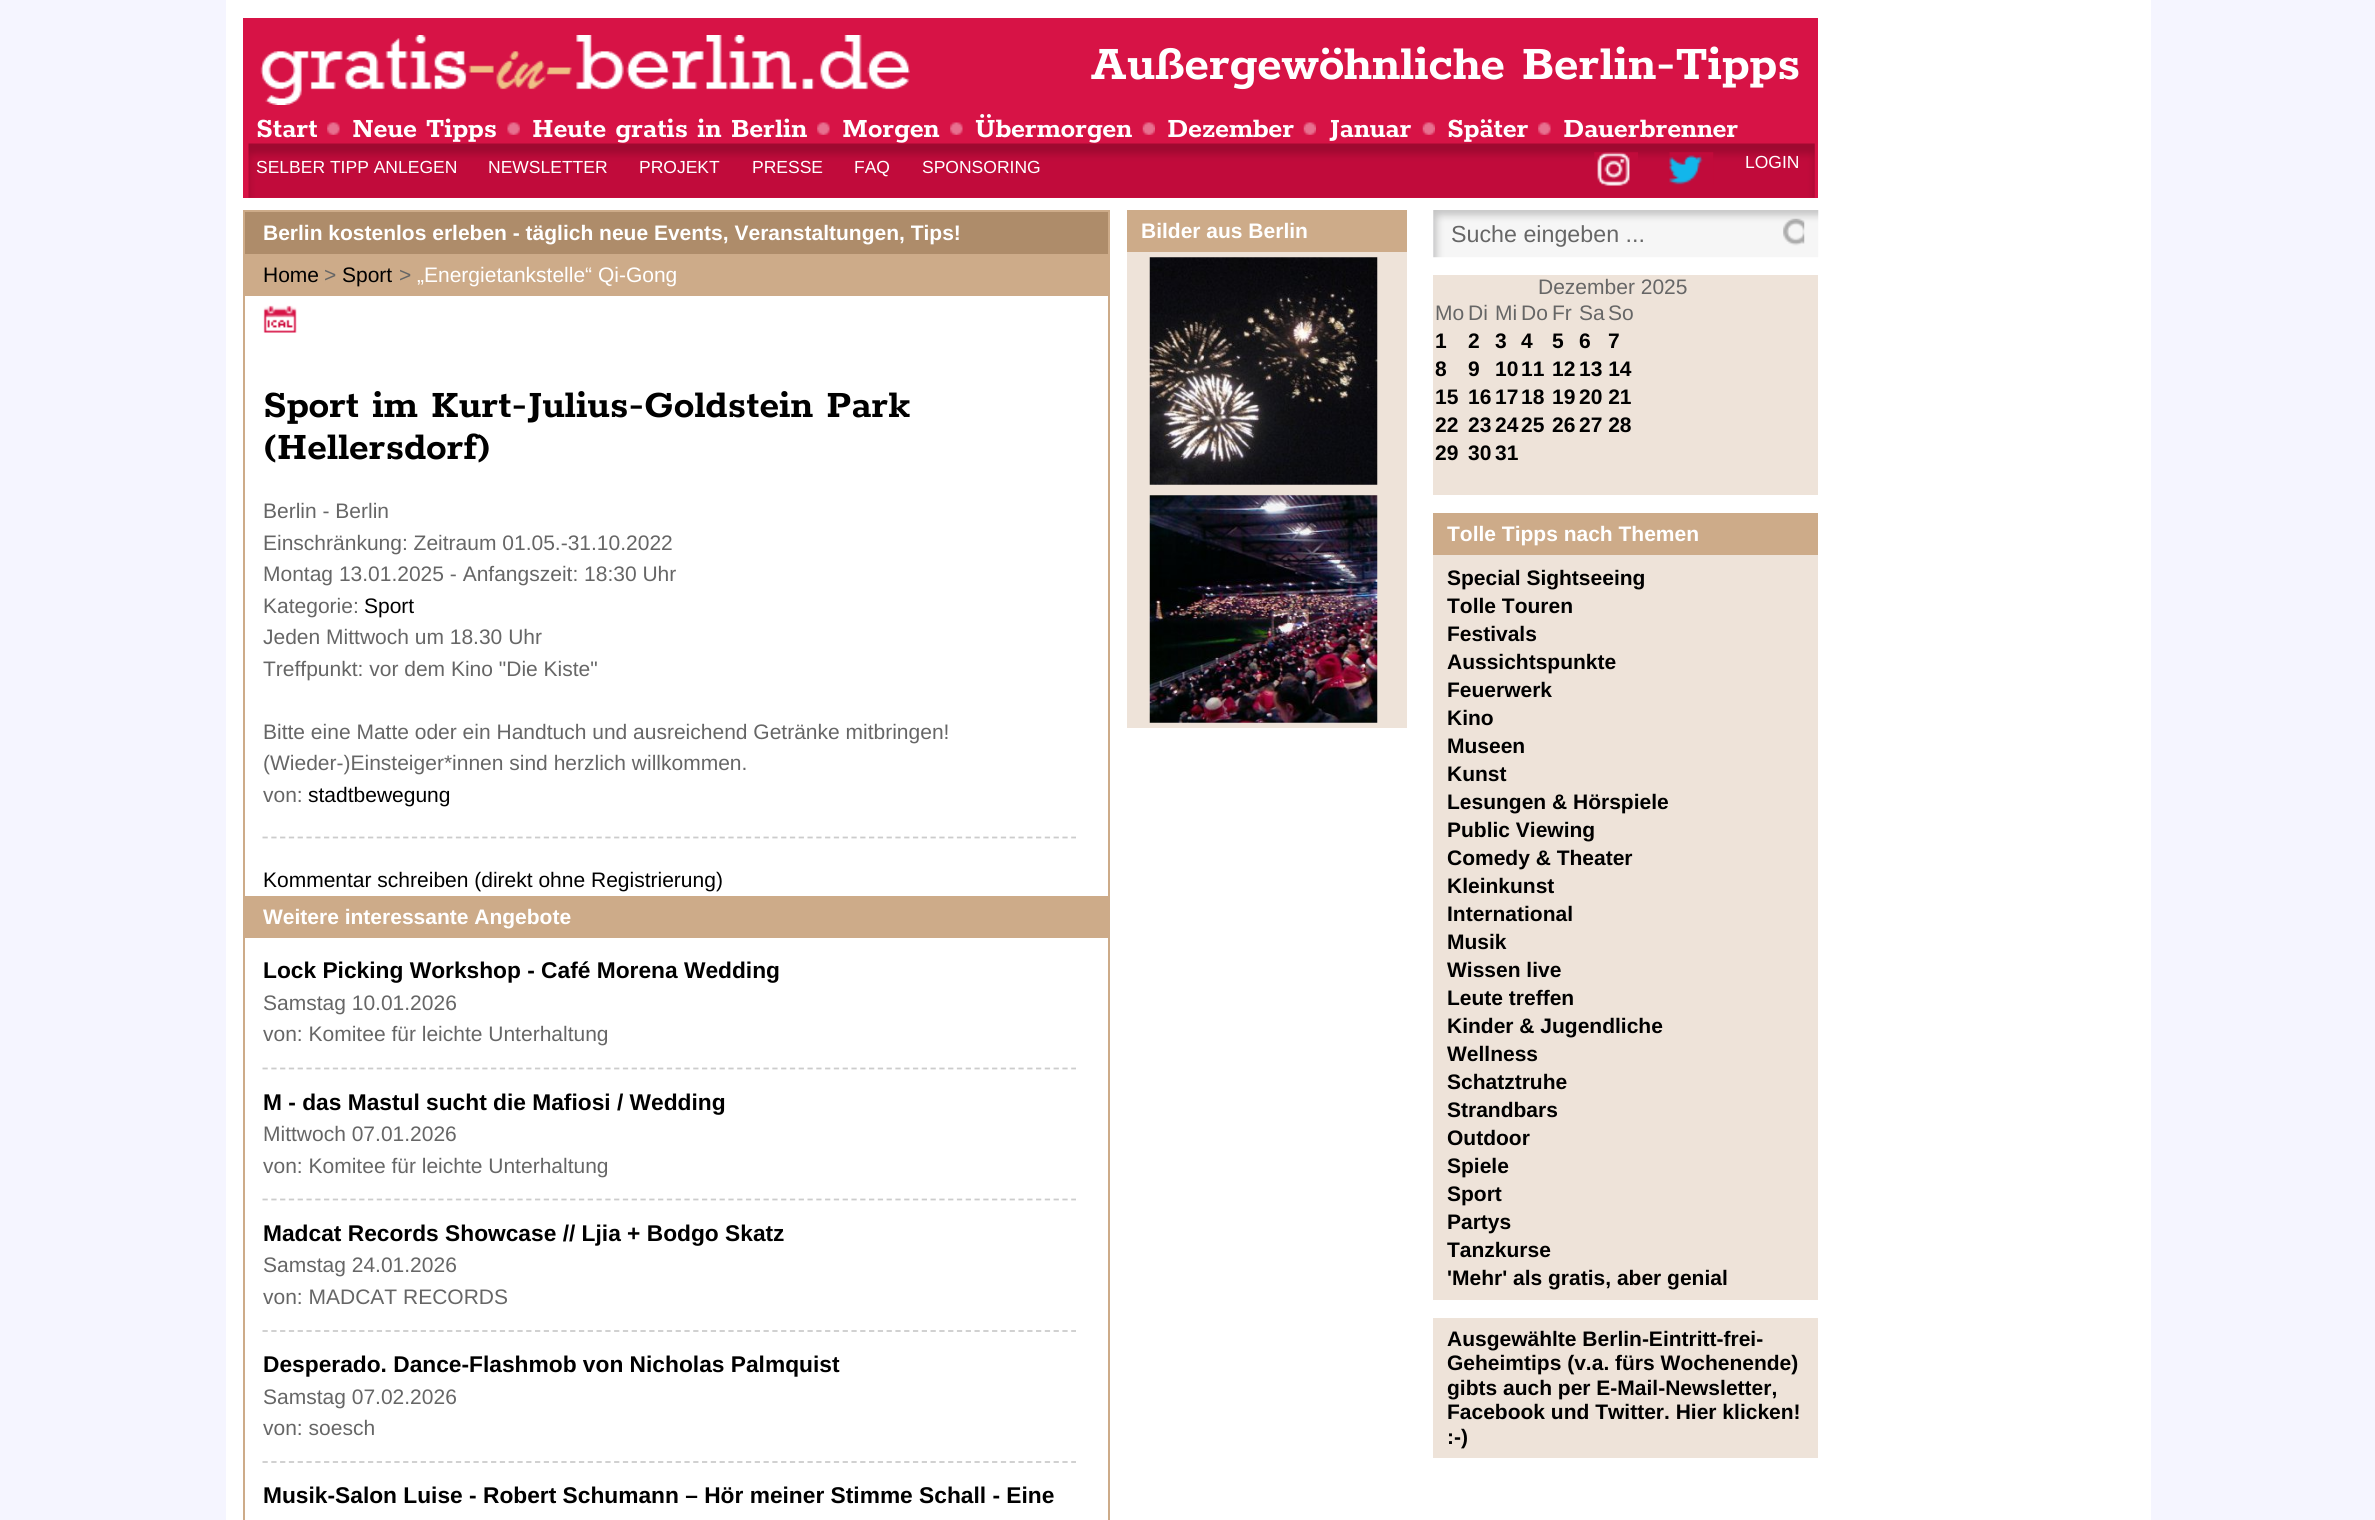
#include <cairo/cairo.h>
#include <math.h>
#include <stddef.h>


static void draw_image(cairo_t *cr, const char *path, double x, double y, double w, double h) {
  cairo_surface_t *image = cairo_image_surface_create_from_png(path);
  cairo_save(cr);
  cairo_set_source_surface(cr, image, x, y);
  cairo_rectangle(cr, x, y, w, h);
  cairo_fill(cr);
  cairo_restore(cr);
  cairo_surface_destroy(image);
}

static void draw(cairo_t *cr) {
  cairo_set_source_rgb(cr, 245 / 255.0, 245 / 255.0, 1);
  cairo_paint(cr);
  cairo_set_source_rgb(cr, 1, 1, 1);
  cairo_rectangle(cr, 226, 0, 1925, 1520);
  cairo_fill(cr);
  cairo_set_source_rgb(cr, 215 / 255.0, 19 / 255.0, 70 / 255.0);
  cairo_rectangle(cr, 243, 18, 1575, 180);
  cairo_fill(cr);
  draw_image(cr, "images/1.png", 248, 143, 1567, 55);
  draw_image(cr, "images/2.png", 260, 35, 650, 70);
  draw_image(cr, "images/3.png", 327, 122, 13, 13);
  draw_image(cr, "images/4.png", 507, 122, 13, 13);
  draw_image(cr, "images/3.png", 817, 122, 13, 13);
  draw_image(cr, "images/3.png", 950, 122, 13, 13);
  draw_image(cr, "images/5.png", 1142, 122, 13, 13);
  draw_image(cr, "images/5.png", 1303, 122, 13, 13);
  draw_image(cr, "images/6.png", 1422, 122, 13, 13);
  draw_image(cr, "images/3.png", 1538, 122, 13, 13);
  draw_image(cr, "images/7.png", 1594, 152, 44, 34);
  draw_image(cr, "images/8.png", 1669, 152, 45, 33);
  cairo_rectangle(cr, 244, 211, 865, 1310);
  cairo_set_source_rgb(cr, 205 / 255.0, 171 / 255.0, 137 / 255.0);
  cairo_stroke(cr);
  cairo_set_source_rgb(cr, 174 / 255.0, 140 / 255.0, 106 / 255.0);
  cairo_rectangle(cr, 245, 212, 863, 42);
  cairo_fill(cr);
  cairo_set_source_rgb(cr, 205 / 255.0, 171 / 255.0, 137 / 255.0);
  cairo_rectangle(cr, 245, 254, 863, 42);
  cairo_fill(cr);
  draw_image(cr, "images/9.png", 263, 305, 34, 28);
  cairo_new_path(cr);
  cairo_move_to(cr, 262.5, 837.5);
  cairo_line_to(cr, 1076, 837.5);
  cairo_set_source_rgb(cr, 204 / 255.0, 204 / 255.0, 204 / 255.0);
  cairo_set_line_width(cr, 1.8);
  cairo_set_dash(cr, (double[]){5.25, 3.54}, 2, 0);
  cairo_stroke(cr);
  cairo_set_source_rgb(cr, 205 / 255.0, 171 / 255.0, 137 / 255.0);
  cairo_rectangle(cr, 245, 896, 863, 42);
  cairo_fill(cr);
  cairo_new_path(cr);
  cairo_move_to(cr, 262.5, 1068.5);
  cairo_line_to(cr, 1076, 1068.5);
  cairo_set_source_rgb(cr, 204 / 255.0, 204 / 255.0, 204 / 255.0);
  cairo_stroke(cr);
  cairo_new_path(cr);
  cairo_move_to(cr, 262.5, 1199.5);
  cairo_line_to(cr, 1076, 1199.5);
  cairo_stroke(cr);
  cairo_new_path(cr);
  cairo_move_to(cr, 262.5, 1331);
  cairo_line_to(cr, 1076, 1331);
  cairo_stroke(cr);
  cairo_new_path(cr);
  cairo_move_to(cr, 262.5, 1462);
  cairo_line_to(cr, 1076, 1462);
  cairo_stroke(cr);
  cairo_set_source_rgb(cr, 238 / 255.0, 227 / 255.0, 217 / 255.0);
  cairo_rectangle(cr, 1127, 252, 280, 476);
  cairo_fill(cr);
  cairo_set_source_rgb(cr, 205 / 255.0, 171 / 255.0, 137 / 255.0);
  cairo_rectangle(cr, 1127, 210, 280, 42);
  cairo_fill(cr);
  draw_image(cr, "images/10.png", 1149, 257, 229, 228);
  draw_image(cr, "images/11.png", 1149, 495, 229, 228);
  draw_image(cr, "images/12.png", 1433, 210, 386, 48);
  draw_image(cr, "images/13.png", 1783, 218, 22, 28);
  cairo_set_source_rgb(cr, 238 / 255.0, 227 / 255.0, 217 / 255.0);
  cairo_rectangle(cr, 1433, 275, 385, 220);
  cairo_fill(cr);
  cairo_rectangle(cr, 1433, 555, 385, 745);
  cairo_fill(cr);
  cairo_set_source_rgb(cr, 205 / 255.0, 171 / 255.0, 137 / 255.0);
  cairo_rectangle(cr, 1433, 513, 385, 42);
  cairo_fill(cr);
  cairo_set_source_rgb(cr, 238 / 255.0, 227 / 255.0, 217 / 255.0);
  cairo_rectangle(cr, 1433, 1318, 385, 140);
  cairo_fill(cr);
  cairo_select_font_face(cr, "Rokkitt", CAIRO_FONT_SLANT_NORMAL, CAIRO_FONT_WEIGHT_BOLD);
  cairo_set_font_size(cr, 52.5);
  cairo_set_source_rgb(cr, 1, 1, 1);
  cairo_move_to(cr, 1090, 79);
  cairo_show_text(cr, "Außergewöhnliche Berlin-Tipps");
  cairo_set_font_size(cr, 29.75);
  cairo_move_to(cr, 256, 137);
  cairo_show_text(cr, "Start");
  cairo_move_to(cr, 352, 137);
  cairo_show_text(cr, "Neue Tipps");
  cairo_move_to(cr, 532, 137);
  cairo_show_text(cr, "Heute gratis in Berlin");
  cairo_move_to(cr, 842, 137);
  cairo_show_text(cr, "Morgen");
  cairo_move_to(cr, 975, 137);
  cairo_show_text(cr, "Übermorgen");
  cairo_move_to(cr, 1167, 137);
  cairo_show_text(cr, "Dezember");
  cairo_move_to(cr, 1329, 137);
  cairo_show_text(cr, "Januar");
  cairo_move_to(cr, 1447, 137);
  cairo_show_text(cr, "Später");
  cairo_move_to(cr, 1563, 137);
  cairo_show_text(cr, "Dauerbrenner");
  cairo_select_font_face(cr, "Liberation Sans", CAIRO_FONT_SLANT_NORMAL, CAIRO_FONT_WEIGHT_NORMAL);
  cairo_set_font_size(cr, 17.5);
  cairo_move_to(cr, 256, 173);
  cairo_show_text(cr, "SELBER TIPP ANLEGEN");
  cairo_move_to(cr, 488, 173);
  cairo_show_text(cr, "NEWSLETTER");
  cairo_move_to(cr, 639, 173);
  cairo_show_text(cr, "PROJEKT");
  cairo_move_to(cr, 752, 173);
  cairo_show_text(cr, "PRESSE");
  cairo_move_to(cr, 854, 173);
  cairo_show_text(cr, "FAQ");
  cairo_move_to(cr, 922, 173);
  cairo_show_text(cr, "SPONSORING");
  cairo_move_to(cr, 1745, 168);
  cairo_show_text(cr, "LOGIN");
  cairo_select_font_face(cr, "Liberation Sans", CAIRO_FONT_SLANT_NORMAL, CAIRO_FONT_WEIGHT_BOLD);
  cairo_set_font_size(cr, 21);
  cairo_move_to(cr, 263, 240);
  cairo_show_text(cr, "Berlin kostenlos erleben - täglich neue Events, Veranstaltungen, Tips!");
  cairo_select_font_face(cr, "Liberation Sans", CAIRO_FONT_SLANT_NORMAL, CAIRO_FONT_WEIGHT_NORMAL);
  cairo_set_source_rgb(cr, 0, 0, 0);
  cairo_move_to(cr, 263, 282);
  cairo_show_text(cr, "Home");
  cairo_set_source_rgb(cr, 102 / 255.0, 102 / 255.0, 102 / 255.0);
  cairo_move_to(cr, 324, 282);
  cairo_show_text(cr, ">");
  cairo_set_source_rgb(cr, 0, 0, 0);
  cairo_move_to(cr, 342, 282);
  cairo_show_text(cr, "Sport");
  cairo_set_source_rgb(cr, 102 / 255.0, 102 / 255.0, 102 / 255.0);
  cairo_move_to(cr, 399, 282);
  cairo_show_text(cr, ">");
  cairo_set_source_rgb(cr, 1, 1, 1);
  cairo_move_to(cr, 417, 282);
  cairo_show_text(cr, "„Energietankstelle“ Qi-Gong");
  cairo_select_font_face(cr, "Rokkitt", CAIRO_FONT_SLANT_NORMAL, CAIRO_FONT_WEIGHT_BOLD);
  cairo_set_font_size(cr, 42);
  cairo_set_source_rgb(cr, 0, 0, 0);
  cairo_move_to(cr, 263, 417);
  cairo_show_text(cr, "Sport im Kurt-Julius-Goldstein Park");
  cairo_move_to(cr, 263, 459);
  cairo_show_text(cr, "(Hellersdorf)");
  cairo_select_font_face(cr, "Liberation Sans", CAIRO_FONT_SLANT_NORMAL, CAIRO_FONT_WEIGHT_NORMAL);
  cairo_set_font_size(cr, 21);
  cairo_set_source_rgb(cr, 102 / 255.0, 102 / 255.0, 102 / 255.0);
  cairo_move_to(cr, 263, 518);
  cairo_show_text(cr, "Berlin - Berlin");
  cairo_move_to(cr, 263, 550);
  cairo_show_text(cr, "Einschränkung: Zeitraum 01.05.-31.10.2022");
  cairo_move_to(cr, 263, 581);
  cairo_show_text(cr, "Montag 13.01.2025 - Anfangszeit: 18:30 Uhr");
  cairo_move_to(cr, 263, 613);
  cairo_show_text(cr, "Kategorie:");
  cairo_set_source_rgb(cr, 0, 0, 0);
  cairo_move_to(cr, 364, 613);
  cairo_show_text(cr, "Sport");
  cairo_set_source_rgb(cr, 102 / 255.0, 102 / 255.0, 102 / 255.0);
  cairo_move_to(cr, 263, 644);
  cairo_show_text(cr, "Jeden Mittwoch um 18.30 Uhr");
  cairo_move_to(cr, 263, 676);
  cairo_show_text(cr, "Treffpunkt: vor dem Kino \"Die Kiste\"");
  cairo_move_to(cr, 263, 739);
  cairo_show_text(cr, "Bitte eine Matte oder ein Handtuch und ausreichend Getränke mitbringen!");
  cairo_move_to(cr, 263, 770);
  cairo_show_text(cr, "(Wieder-)Einsteiger*innen sind herzlich willkommen.");
  cairo_move_to(cr, 263, 802);
  cairo_show_text(cr, "von:");
  cairo_set_source_rgb(cr, 0, 0, 0);
  cairo_move_to(cr, 308, 802);
  cairo_show_text(cr, "stadtbewegung");
  cairo_move_to(cr, 263, 887);
  cairo_show_text(cr, "Kommentar schreiben (direkt ohne Registrierung)");
  cairo_select_font_face(cr, "Liberation Sans", CAIRO_FONT_SLANT_NORMAL, CAIRO_FONT_WEIGHT_BOLD);
  cairo_set_source_rgb(cr, 1, 1, 1);
  cairo_move_to(cr, 263, 924);
  cairo_show_text(cr, "Weitere interessante Angebote");
  cairo_set_font_size(cr, 22.75);
  cairo_set_source_rgb(cr, 0, 0, 0);
  cairo_move_to(cr, 263, 978);
  cairo_show_text(cr, "Lock Picking Workshop - Café Morena Wedding");
  cairo_select_font_face(cr, "Liberation Sans", CAIRO_FONT_SLANT_NORMAL, CAIRO_FONT_WEIGHT_NORMAL);
  cairo_set_font_size(cr, 21);
  cairo_set_source_rgb(cr, 102 / 255.0, 102 / 255.0, 102 / 255.0);
  cairo_move_to(cr, 263, 1010);
  cairo_show_text(cr, "Samstag 10.01.2026");
  cairo_move_to(cr, 263, 1041);
  cairo_show_text(cr, "von: Komitee für leichte Unterhaltung");
  cairo_select_font_face(cr, "Liberation Sans", CAIRO_FONT_SLANT_NORMAL, CAIRO_FONT_WEIGHT_BOLD);
  cairo_set_font_size(cr, 22.75);
  cairo_set_source_rgb(cr, 0, 0, 0);
  cairo_move_to(cr, 263, 1110);
  cairo_show_text(cr, "M - das Mastul sucht die Mafiosi / Wedding");
  cairo_select_font_face(cr, "Liberation Sans", CAIRO_FONT_SLANT_NORMAL, CAIRO_FONT_WEIGHT_NORMAL);
  cairo_set_font_size(cr, 21);
  cairo_set_source_rgb(cr, 102 / 255.0, 102 / 255.0, 102 / 255.0);
  cairo_move_to(cr, 263, 1141);
  cairo_show_text(cr, "Mittwoch 07.01.2026");
  cairo_move_to(cr, 263, 1173);
  cairo_show_text(cr, "von: Komitee für leichte Unterhaltung");
  cairo_select_font_face(cr, "Liberation Sans", CAIRO_FONT_SLANT_NORMAL, CAIRO_FONT_WEIGHT_BOLD);
  cairo_set_font_size(cr, 22.75);
  cairo_set_source_rgb(cr, 0, 0, 0);
  cairo_move_to(cr, 263, 1241);
  cairo_show_text(cr, "Madcat Records Showcase // Ljia + Bodgo Skatz");
  cairo_select_font_face(cr, "Liberation Sans", CAIRO_FONT_SLANT_NORMAL, CAIRO_FONT_WEIGHT_NORMAL);
  cairo_set_font_size(cr, 21);
  cairo_set_source_rgb(cr, 102 / 255.0, 102 / 255.0, 102 / 255.0);
  cairo_move_to(cr, 263, 1272);
  cairo_show_text(cr, "Samstag 24.01.2026");
  cairo_move_to(cr, 263, 1304);
  cairo_show_text(cr, "von: MADCAT RECORDS");
  cairo_select_font_face(cr, "Liberation Sans", CAIRO_FONT_SLANT_NORMAL, CAIRO_FONT_WEIGHT_BOLD);
  cairo_set_font_size(cr, 22.75);
  cairo_set_source_rgb(cr, 0, 0, 0);
  cairo_move_to(cr, 263, 1372);
  cairo_show_text(cr, "Desperado. Dance-Flashmob von Nicholas Palmquist");
  cairo_select_font_face(cr, "Liberation Sans", CAIRO_FONT_SLANT_NORMAL, CAIRO_FONT_WEIGHT_NORMAL);
  cairo_set_font_size(cr, 21);
  cairo_set_source_rgb(cr, 102 / 255.0, 102 / 255.0, 102 / 255.0);
  cairo_move_to(cr, 263, 1404);
  cairo_show_text(cr, "Samstag 07.02.2026");
  cairo_move_to(cr, 263, 1435);
  cairo_show_text(cr, "von: soesch");
  cairo_select_font_face(cr, "Liberation Sans", CAIRO_FONT_SLANT_NORMAL, CAIRO_FONT_WEIGHT_BOLD);
  cairo_set_font_size(cr, 22.75);
  cairo_set_source_rgb(cr, 0, 0, 0);
  cairo_move_to(cr, 263, 1503);
  cairo_show_text(cr, "Musik-Salon Luise - Robert Schumann – Hör meiner Stimme Schall - Eine");
  cairo_set_font_size(cr, 21);
  cairo_set_source_rgb(cr, 1, 1, 1);
  cairo_move_to(cr, 1141, 238);
  cairo_show_text(cr, "Bilder aus Berlin");
  cairo_select_font_face(cr, "Liberation Sans", CAIRO_FONT_SLANT_NORMAL, CAIRO_FONT_WEIGHT_NORMAL);
  cairo_set_font_size(cr, 23.25);
  cairo_set_source_rgb(cr, 102 / 255.0, 102 / 255.0, 102 / 255.0);
  cairo_move_to(cr, 1451, 242);
  cairo_show_text(cr, "Suche eingeben ...");
  cairo_set_font_size(cr, 21);
  cairo_move_to(cr, 1538, 294);
  cairo_show_text(cr, "Dezember 2025");
  cairo_move_to(cr, 1435, 320);
  cairo_show_text(cr, "Mo");
  cairo_move_to(cr, 1468, 320);
  cairo_show_text(cr, "Di");
  cairo_move_to(cr, 1495, 320);
  cairo_show_text(cr, "Mi");
  cairo_move_to(cr, 1521, 320);
  cairo_show_text(cr, "Do");
  cairo_move_to(cr, 1552, 320);
  cairo_show_text(cr, "Fr");
  cairo_move_to(cr, 1579, 320);
  cairo_show_text(cr, "Sa");
  cairo_move_to(cr, 1608, 320);
  cairo_show_text(cr, "So");
  cairo_select_font_face(cr, "Liberation Sans", CAIRO_FONT_SLANT_NORMAL, CAIRO_FONT_WEIGHT_BOLD);
  cairo_set_source_rgb(cr, 0, 0, 0);
  cairo_move_to(cr, 1435, 348);
  cairo_show_text(cr, "1");
  cairo_move_to(cr, 1468, 348);
  cairo_show_text(cr, "2");
  cairo_move_to(cr, 1495, 348);
  cairo_show_text(cr, "3");
  cairo_move_to(cr, 1521, 348);
  cairo_show_text(cr, "4");
  cairo_move_to(cr, 1552, 348);
  cairo_show_text(cr, "5");
  cairo_move_to(cr, 1579, 348);
  cairo_show_text(cr, "6");
  cairo_move_to(cr, 1608, 348);
  cairo_show_text(cr, "7");
  cairo_move_to(cr, 1435, 376);
  cairo_show_text(cr, "8");
  cairo_move_to(cr, 1468, 376);
  cairo_show_text(cr, "9");
  cairo_move_to(cr, 1495, 376);
  cairo_show_text(cr, "10");
  cairo_move_to(cr, 1521, 376);
  cairo_show_text(cr, "11");
  cairo_move_to(cr, 1552, 376);
  cairo_show_text(cr, "12");
  cairo_move_to(cr, 1579, 376);
  cairo_show_text(cr, "13 14");
  cairo_move_to(cr, 1435, 404);
  cairo_show_text(cr, "15");
  cairo_move_to(cr, 1468, 404);
  cairo_show_text(cr, "16");
  cairo_move_to(cr, 1495, 404);
  cairo_show_text(cr, "17");
  cairo_move_to(cr, 1521, 404);
  cairo_show_text(cr, "18");
  cairo_move_to(cr, 1552, 404);
  cairo_show_text(cr, "19");
  cairo_move_to(cr, 1579, 404);
  cairo_show_text(cr, "20 21");
  cairo_move_to(cr, 1435, 432);
  cairo_show_text(cr, "22");
  cairo_move_to(cr, 1468, 432);
  cairo_show_text(cr, "23");
  cairo_move_to(cr, 1495, 432);
  cairo_show_text(cr, "24");
  cairo_move_to(cr, 1521, 432);
  cairo_show_text(cr, "25");
  cairo_move_to(cr, 1552, 432);
  cairo_show_text(cr, "26");
  cairo_move_to(cr, 1579, 432);
  cairo_show_text(cr, "27 28");
  cairo_move_to(cr, 1435, 460);
  cairo_show_text(cr, "29");
  cairo_move_to(cr, 1468, 460);
  cairo_show_text(cr, "30");
  cairo_move_to(cr, 1495, 460);
  cairo_show_text(cr, "31");
  cairo_set_source_rgb(cr, 1, 1, 1);
  cairo_move_to(cr, 1447, 541);
  cairo_show_text(cr, "Tolle Tipps nach Themen");
  cairo_set_source_rgb(cr, 0, 0, 0);
  cairo_move_to(cr, 1447, 585);
  cairo_show_text(cr, "Special Sightseeing");
  cairo_move_to(cr, 1447, 613);
  cairo_show_text(cr, "Tolle Touren");
  cairo_move_to(cr, 1447, 641);
  cairo_show_text(cr, "Festivals");
  cairo_move_to(cr, 1447, 669);
  cairo_show_text(cr, "Aussichtspunkte");
  cairo_move_to(cr, 1447, 697);
  cairo_show_text(cr, "Feuerwerk");
  cairo_move_to(cr, 1447, 725);
  cairo_show_text(cr, "Kino");
  cairo_move_to(cr, 1447, 753);
  cairo_show_text(cr, "Museen");
  cairo_move_to(cr, 1447, 781);
  cairo_show_text(cr, "Kunst");
  cairo_move_to(cr, 1447, 809);
  cairo_show_text(cr, "Lesungen & Hörspiele");
  cairo_move_to(cr, 1447, 837);
  cairo_show_text(cr, "Public Viewing");
  cairo_move_to(cr, 1447, 865);
  cairo_show_text(cr, "Comedy & Theater");
  cairo_move_to(cr, 1447, 893);
  cairo_show_text(cr, "Kleinkunst");
  cairo_move_to(cr, 1447, 921);
  cairo_show_text(cr, "International");
  cairo_move_to(cr, 1447, 949);
  cairo_show_text(cr, "Musik");
  cairo_move_to(cr, 1447, 977);
  cairo_show_text(cr, "Wissen live");
  cairo_move_to(cr, 1447, 1005);
  cairo_show_text(cr, "Leute treffen");
  cairo_move_to(cr, 1447, 1033);
  cairo_show_text(cr, "Kinder & Jugendliche");
  cairo_move_to(cr, 1447, 1061);
  cairo_show_text(cr, "Wellness");
  cairo_move_to(cr, 1447, 1089);
  cairo_show_text(cr, "Schatztruhe");
  cairo_move_to(cr, 1447, 1117);
  cairo_show_text(cr, "Strandbars");
  cairo_move_to(cr, 1447, 1145);
  cairo_show_text(cr, "Outdoor");
  cairo_move_to(cr, 1447, 1173);
  cairo_show_text(cr, "Spiele");
  cairo_move_to(cr, 1447, 1201);
  cairo_show_text(cr, "Sport");
  cairo_move_to(cr, 1447, 1229);
  cairo_show_text(cr, "Partys");
  cairo_move_to(cr, 1447, 1257);
  cairo_show_text(cr, "Tanzkurse");
  cairo_move_to(cr, 1447, 1285);
  cairo_show_text(cr, "'Mehr' als gratis, aber genial");
  cairo_move_to(cr, 1447, 1346);
  cairo_show_text(cr, "Ausgewählte Berlin-Eintritt-frei-");
  cairo_move_to(cr, 1447, 1370);
  cairo_show_text(cr, "Geheimtips (v.a. fürs Wochenende)");
  cairo_move_to(cr, 1447, 1395);
  cairo_show_text(cr, "gibts auch per E-Mail-Newsletter,");
  cairo_move_to(cr, 1447, 1419);
  cairo_show_text(cr, "Facebook und Twitter. Hier klicken!");
  cairo_move_to(cr, 1447, 1444);
  cairo_show_text(cr, ":-)");
}

int main(void) {
  cairo_surface_t *surface = cairo_image_surface_create(CAIRO_FORMAT_RGB24, 2375, 1520);
  cairo_t *cr = cairo_create(surface);
  cairo_font_options_t *options = cairo_font_options_create();
  cairo_font_options_set_hint_metrics(options, CAIRO_HINT_METRICS_OFF);
  cairo_font_options_set_hint_style(options, CAIRO_HINT_STYLE_NONE);
  cairo_set_font_options(cr, options);
  cairo_set_miter_limit(cr, 4);
  draw(cr);
  cairo_surface_write_to_png(surface, "out.png");
  cairo_font_options_destroy(options);
  cairo_destroy(cr);
  cairo_surface_destroy(surface);
  return 0;
}
